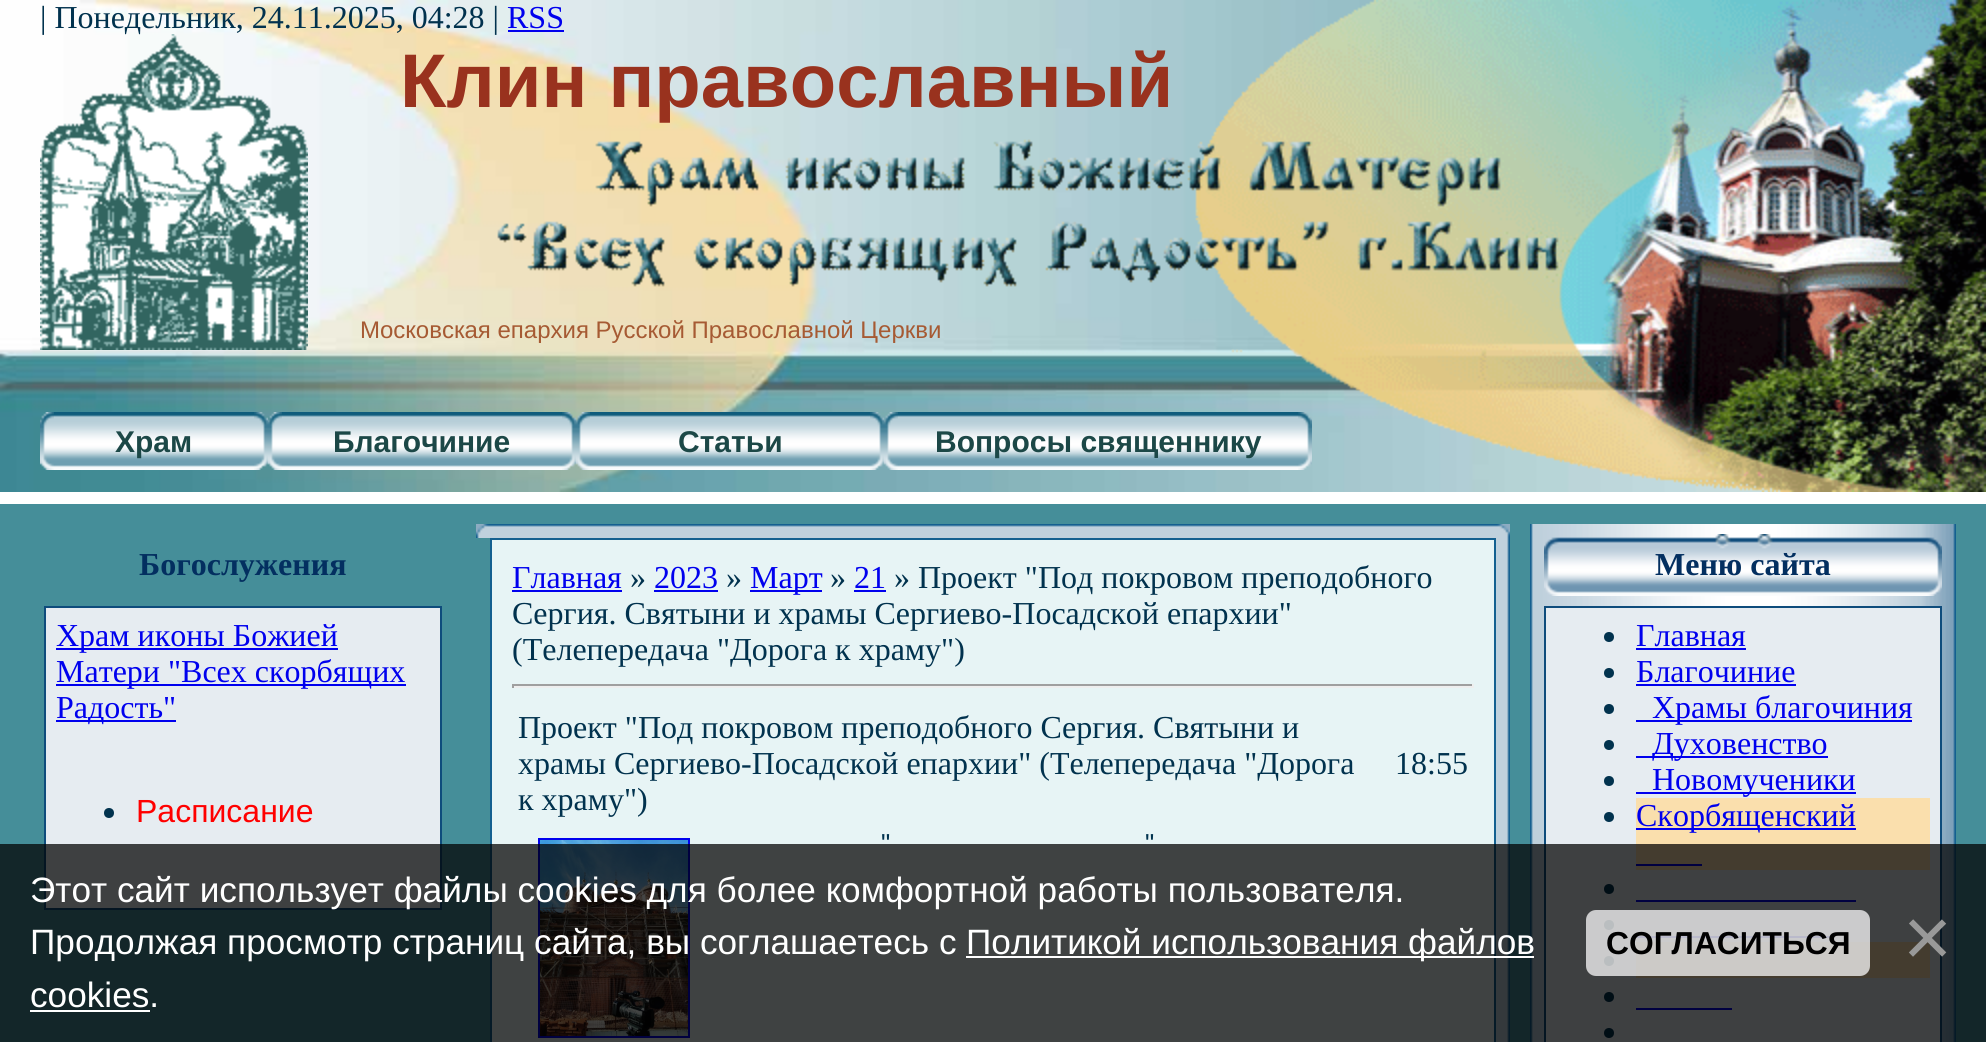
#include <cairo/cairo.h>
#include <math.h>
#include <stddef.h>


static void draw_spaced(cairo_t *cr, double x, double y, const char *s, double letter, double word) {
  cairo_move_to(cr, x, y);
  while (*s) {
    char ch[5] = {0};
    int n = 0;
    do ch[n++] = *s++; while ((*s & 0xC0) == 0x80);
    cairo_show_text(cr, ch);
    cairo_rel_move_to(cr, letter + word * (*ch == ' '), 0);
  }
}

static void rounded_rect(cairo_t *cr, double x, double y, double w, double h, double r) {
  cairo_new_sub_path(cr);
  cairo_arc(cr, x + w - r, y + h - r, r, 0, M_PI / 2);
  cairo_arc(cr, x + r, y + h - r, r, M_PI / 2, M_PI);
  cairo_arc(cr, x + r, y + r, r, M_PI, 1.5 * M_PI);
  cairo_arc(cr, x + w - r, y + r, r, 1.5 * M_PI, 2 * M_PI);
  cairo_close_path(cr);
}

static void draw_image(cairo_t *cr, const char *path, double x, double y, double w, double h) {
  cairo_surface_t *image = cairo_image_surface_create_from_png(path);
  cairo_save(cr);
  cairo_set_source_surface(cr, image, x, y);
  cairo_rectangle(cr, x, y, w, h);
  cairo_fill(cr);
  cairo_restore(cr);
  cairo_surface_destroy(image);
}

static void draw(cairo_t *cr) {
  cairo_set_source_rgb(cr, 69 / 255.0, 142 / 255.0, 153 / 255.0);
  cairo_paint(cr);
  draw_image(cr, "images/1.png", 0, 0, 1781, 492);
  draw_image(cr, "images/2.png", 497, 0, 1489, 492);
  cairo_set_source_rgb(cr, 0, 0, 238 / 255.0);
  cairo_rectangle(cr, 508, 30, 56, 2);
  cairo_fill(cr);
  draw_image(cr, "images/4.png", 40, 412, 14, 58);
  draw_image(cr, "images/5.png", 54, 412, 200, 58);
  draw_image(cr, "images/6.png", 254, 412, 14, 58);
  draw_image(cr, "images/7.png", 268, 412, 14, 58);
  draw_image(cr, "images/8.png", 282, 412, 280, 58);
  draw_image(cr, "images/9.png", 562, 412, 14, 58);
  draw_image(cr, "images/10.png", 576, 412, 14, 58);
  draw_image(cr, "images/8.png", 590, 412, 280, 58);
  draw_image(cr, "images/11.png", 870, 412, 14, 58);
  draw_image(cr, "images/12.png", 884, 412, 14, 58);
  draw_image(cr, "images/13.png", 898, 412, 400, 58);
  draw_image(cr, "images/14.png", 1298, 412, 14, 58);
  cairo_set_source_rgb(cr, 1, 1, 1);
  cairo_rectangle(cr, 0, 492, 1986, 12);
  cairo_fill(cr);
  cairo_set_source_rgb(cr, 230 / 255.0, 236 / 255.0, 241 / 255.0);
  cairo_rectangle(cr, 45, 607, 396, 302);
  cairo_fill_preserve(cr);
  cairo_set_source_rgb(cr, 14 / 255.0, 76 / 255.0, 124 / 255.0);
  cairo_stroke(cr);
  cairo_set_source_rgb(cr, 0, 0, 238 / 255.0);
  cairo_rectangle(cr, 56, 648, 282, 2);
  cairo_fill(cr);
  cairo_rectangle(cr, 56, 684, 350, 2);
  cairo_fill(cr);
  cairo_rectangle(cr, 56, 720, 120, 2);
  cairo_fill(cr);
  cairo_set_source_rgb(cr, 1 / 255.0, 50 / 255.0, 78 / 255.0);
  cairo_arc(cr, 109, 813, 5, 0, 2 * M_PI);
  cairo_fill(cr);
  draw_image(cr, "images/15.png", 476, 524, 14, 14);
  draw_image(cr, "images/16.png", 490, 524, 1006, 14);
  draw_image(cr, "images/17.png", 1496, 524, 14, 14);
  cairo_set_source_rgb(cr, 231 / 255.0, 244 / 255.0, 245 / 255.0);
  cairo_rectangle(cr, 491, 539, 1004, 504);
  cairo_fill_preserve(cr);
  cairo_set_source_rgb(cr, 20 / 255.0, 96 / 255.0, 144 / 255.0);
  cairo_stroke(cr);
  cairo_set_source_rgb(cr, 0, 0, 238 / 255.0);
  cairo_rectangle(cr, 512, 590, 110, 2);
  cairo_fill(cr);
  cairo_rectangle(cr, 654, 590, 64, 2);
  cairo_fill(cr);
  cairo_rectangle(cr, 750, 590, 72, 2);
  cairo_fill(cr);
  cairo_rectangle(cr, 854, 590, 32, 2);
  cairo_fill(cr);
  cairo_set_source_rgb(cr, 159 / 255.0, 159 / 255.0, 159 / 255.0);
  cairo_rectangle(cr, 512, 684, 962, 2);
  cairo_fill(cr);
  cairo_set_source_rgb(cr, 238 / 255.0, 238 / 255.0, 238 / 255.0);
  cairo_rectangle(cr, 1472, 684, 2, 4);
  cairo_fill(cr);
  cairo_rectangle(cr, 512, 686, 962, 2);
  cairo_fill(cr);
  cairo_set_source_rgb(cr, 159 / 255.0, 159 / 255.0, 159 / 255.0);
  cairo_rectangle(cr, 512, 684, 2, 4);
  cairo_fill(cr);
  cairo_rectangle(cr, 539, 839, 150, 198);
  cairo_set_source_rgb(cr, 0, 0, 238 / 255.0);
  cairo_stroke(cr);
  draw_image(cr, "images/18.png", 540, 840, 148, 196);
  draw_image(cr, "images/19.png", 1496, 538, 14, 504);
  draw_image(cr, "images/20.png", 1530, 524, 426, 518);
  draw_image(cr, "images/21.png", 1544, 534, 398, 62);
  cairo_set_source_rgb(cr, 230 / 255.0, 236 / 255.0, 241 / 255.0);
  cairo_rectangle(cr, 1545, 607, 396, 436);
  cairo_fill_preserve(cr);
  cairo_set_source_rgb(cr, 14 / 255.0, 76 / 255.0, 124 / 255.0);
  cairo_stroke(cr);
  cairo_set_source_rgb(cr, 1 / 255.0, 50 / 255.0, 78 / 255.0);
  cairo_arc(cr, 1609, 637, 5, 0, 2 * M_PI);
  cairo_fill(cr);
  cairo_set_source_rgb(cr, 0, 0, 238 / 255.0);
  cairo_rectangle(cr, 1636, 648, 110, 2);
  cairo_fill(cr);
  cairo_set_source_rgb(cr, 1 / 255.0, 50 / 255.0, 78 / 255.0);
  cairo_arc(cr, 1609, 673, 5, 0, 2 * M_PI);
  cairo_fill(cr);
  cairo_set_source_rgb(cr, 0, 0, 238 / 255.0);
  cairo_rectangle(cr, 1636, 684, 160, 2);
  cairo_fill(cr);
  cairo_set_source_rgb(cr, 1 / 255.0, 50 / 255.0, 78 / 255.0);
  cairo_arc(cr, 1609, 709, 5, 0, 2 * M_PI);
  cairo_fill(cr);
  cairo_set_source_rgb(cr, 0, 0, 238 / 255.0);
  cairo_rectangle(cr, 1636, 720, 276, 2);
  cairo_fill(cr);
  cairo_set_source_rgb(cr, 1 / 255.0, 50 / 255.0, 78 / 255.0);
  cairo_arc(cr, 1609, 745, 5, 0, 2 * M_PI);
  cairo_fill(cr);
  cairo_set_source_rgb(cr, 0, 0, 238 / 255.0);
  cairo_rectangle(cr, 1636, 756, 192, 2);
  cairo_fill(cr);
  cairo_set_source_rgb(cr, 1 / 255.0, 50 / 255.0, 78 / 255.0);
  cairo_arc(cr, 1609, 781, 5, 0, 2 * M_PI);
  cairo_fill(cr);
  cairo_set_source_rgb(cr, 0, 0, 238 / 255.0);
  cairo_rectangle(cr, 1636, 792, 220, 2);
  cairo_fill(cr);
  cairo_set_source_rgb(cr, 250 / 255.0, 223 / 255.0, 173 / 255.0);
  cairo_rectangle(cr, 1636, 798, 294, 72);
  cairo_fill(cr);
  cairo_set_source_rgb(cr, 1 / 255.0, 50 / 255.0, 78 / 255.0);
  cairo_arc(cr, 1609, 817, 5, 0, 2 * M_PI);
  cairo_fill(cr);
  cairo_set_source_rgb(cr, 0, 0, 238 / 255.0);
  cairo_rectangle(cr, 1636, 828, 220, 2);
  cairo_fill(cr);
  cairo_rectangle(cr, 1636, 864, 66, 2);
  cairo_fill(cr);
  cairo_set_source_rgb(cr, 1 / 255.0, 50 / 255.0, 78 / 255.0);
  cairo_arc(cr, 1609, 889, 5, 0, 2 * M_PI);
  cairo_fill(cr);
  cairo_set_source_rgb(cr, 0, 0, 238 / 255.0);
  cairo_rectangle(cr, 1636, 900, 220, 2);
  cairo_fill(cr);
  cairo_set_source_rgb(cr, 1 / 255.0, 50 / 255.0, 78 / 255.0);
  cairo_arc(cr, 1609, 925, 5, 0, 2 * M_PI);
  cairo_fill(cr);
  cairo_set_source_rgb(cr, 0, 0, 238 / 255.0);
  cairo_rectangle(cr, 1636, 936, 196, 2);
  cairo_fill(cr);
  cairo_set_source_rgb(cr, 250 / 255.0, 223 / 255.0, 173 / 255.0);
  cairo_rectangle(cr, 1636, 942, 294, 36);
  cairo_fill(cr);
  cairo_set_source_rgb(cr, 1 / 255.0, 50 / 255.0, 78 / 255.0);
  cairo_arc(cr, 1609, 961, 5, 0, 2 * M_PI);
  cairo_fill(cr);
  cairo_arc(cr, 1609, 997, 5, 0, 2 * M_PI);
  cairo_fill(cr);
  cairo_set_source_rgb(cr, 0, 0, 238 / 255.0);
  cairo_rectangle(cr, 1636, 1008, 96, 2);
  cairo_fill(cr);
  cairo_set_source_rgb(cr, 1 / 255.0, 50 / 255.0, 78 / 255.0);
  cairo_arc(cr, 1609, 1033, 5, 0, 2 * M_PI);
  cairo_fill(cr);
  cairo_set_source_rgba(cr, 0, 0, 0, 0.73);
  cairo_rectangle(cr, 0, 844, 1986, 198);
  cairo_fill(cr);
  cairo_set_source_rgb(cr, 1, 1, 1);
  cairo_rectangle(cr, 966, 956, 568, 2);
  cairo_fill(cr);
  cairo_rectangle(cr, 30, 1010, 120, 2);
  cairo_fill(cr);
  cairo_set_source_rgba(cr, 1, 1, 1, 0.73);
  rounded_rect(cr, 1586, 910, 284, 66, 10);
  cairo_fill(cr);
  cairo_select_font_face(cr, "Liberation Serif", CAIRO_FONT_SLANT_NORMAL, CAIRO_FONT_WEIGHT_NORMAL);
  cairo_set_font_size(cr, 32);
  cairo_set_source_rgb(cr, 1 / 255.0, 50 / 255.0, 78 / 255.0);
  cairo_move_to(cr, 40, 28);
  cairo_show_text(cr, "| Понедельник, 24.11.2025, 04:28 |");
  cairo_set_source_rgb(cr, 0, 0, 238 / 255.0);
  cairo_move_to(cr, 507, 28);
  cairo_show_text(cr, "RSS");
  draw_image(cr, "images/3.png", 40, 34, 268, 316);
  cairo_select_font_face(cr, "Liberation Sans", CAIRO_FONT_SLANT_NORMAL, CAIRO_FONT_WEIGHT_BOLD);
  cairo_set_font_size(cr, 76);
  cairo_set_source_rgb(cr, 153 / 255.0, 50 / 255.0, 30 / 255.0);
  cairo_move_to(cr, 400, 107);
  cairo_show_text(cr, "Клин православный");
  cairo_select_font_face(cr, "Liberation Sans", CAIRO_FONT_SLANT_NORMAL, CAIRO_FONT_WEIGHT_NORMAL);
  cairo_set_font_size(cr, 24);
  cairo_set_source_rgb(cr, 166 / 255.0, 90 / 255.0, 51 / 255.0);
  cairo_move_to(cr, 360, 338);
  cairo_show_text(cr, "Московская епархия Русской Православной Церкви");
  cairo_select_font_face(cr, "Liberation Sans", CAIRO_FONT_SLANT_NORMAL, CAIRO_FONT_WEIGHT_BOLD);
  cairo_set_font_size(cr, 30);
  cairo_set_source_rgb(cr, 28 / 255.0, 72 / 255.0, 71 / 255.0);
  cairo_move_to(cr, 115, 452);
  cairo_show_text(cr, "Храм");
  cairo_move_to(cr, 333, 452);
  cairo_show_text(cr, "Благочиние");
  cairo_move_to(cr, 678, 452);
  cairo_show_text(cr, "Статьи");
  cairo_move_to(cr, 935, 452);
  cairo_show_text(cr, "Вопросы священнику");
  cairo_select_font_face(cr, "Liberation Serif", CAIRO_FONT_SLANT_NORMAL, CAIRO_FONT_WEIGHT_BOLD);
  cairo_set_font_size(cr, 32);
  cairo_set_source_rgb(cr, 3 / 255.0, 47 / 255.0, 96 / 255.0);
  cairo_move_to(cr, 139, 575);
  cairo_show_text(cr, "Богослужения");
  cairo_select_font_face(cr, "Liberation Serif", CAIRO_FONT_SLANT_NORMAL, CAIRO_FONT_WEIGHT_NORMAL);
  cairo_set_source_rgb(cr, 0, 0, 238 / 255.0);
  cairo_move_to(cr, 56, 646);
  cairo_show_text(cr, "Храм иконы Божией");
  cairo_move_to(cr, 56, 682);
  cairo_show_text(cr, "Матери \"Всех скорбящих");
  cairo_move_to(cr, 56, 718);
  cairo_show_text(cr, "Радость\"");
  cairo_select_font_face(cr, "Liberation Sans", CAIRO_FONT_SLANT_NORMAL, CAIRO_FONT_WEIGHT_NORMAL);
  cairo_set_source_rgb(cr, 1, 0, 0);
  cairo_move_to(cr, 136, 822);
  cairo_show_text(cr, "Расписание");
  cairo_select_font_face(cr, "Liberation Serif", CAIRO_FONT_SLANT_NORMAL, CAIRO_FONT_WEIGHT_NORMAL);
  cairo_set_source_rgb(cr, 0, 0, 238 / 255.0);
  cairo_move_to(cr, 512, 588);
  cairo_show_text(cr, "Главная");
  cairo_set_source_rgb(cr, 1 / 255.0, 50 / 255.0, 78 / 255.0);
  cairo_move_to(cr, 630, 588);
  cairo_show_text(cr, "»");
  cairo_set_source_rgb(cr, 0, 0, 238 / 255.0);
  cairo_move_to(cr, 654, 588);
  cairo_show_text(cr, "2023");
  cairo_set_source_rgb(cr, 1 / 255.0, 50 / 255.0, 78 / 255.0);
  cairo_move_to(cr, 726, 588);
  cairo_show_text(cr, "»");
  cairo_set_source_rgb(cr, 0, 0, 238 / 255.0);
  cairo_move_to(cr, 750, 588);
  cairo_show_text(cr, "Март");
  cairo_set_source_rgb(cr, 1 / 255.0, 50 / 255.0, 78 / 255.0);
  cairo_move_to(cr, 830, 588);
  cairo_show_text(cr, "»");
  cairo_set_source_rgb(cr, 0, 0, 238 / 255.0);
  cairo_move_to(cr, 854, 588);
  cairo_show_text(cr, "21");
  cairo_set_source_rgb(cr, 1 / 255.0, 50 / 255.0, 78 / 255.0);
  cairo_move_to(cr, 894, 588);
  cairo_show_text(cr, "» Проект \"Под покровом преподобного");
  cairo_move_to(cr, 512, 624);
  cairo_show_text(cr, "Сергия. Святыни и храмы Сергиево-Посадской епархии\"");
  cairo_move_to(cr, 512, 660);
  cairo_show_text(cr, "(Телепередача \"Дорога к храму\")");
  cairo_move_to(cr, 518, 738);
  cairo_show_text(cr, "Проект \"Под покровом преподобного Сергия. Святыни и");
  cairo_move_to(cr, 518, 774);
  cairo_show_text(cr, "храмы Сергиево-Посадской епархии\" (Телепередача \"Дорога");
  cairo_move_to(cr, 518, 810);
  cairo_show_text(cr, "к храму\")");
  cairo_move_to(cr, 1395, 774);
  cairo_show_text(cr, "18:55");
  cairo_select_font_face(cr, "Liberation Sans", CAIRO_FONT_SLANT_NORMAL, CAIRO_FONT_WEIGHT_NORMAL);
  cairo_set_font_size(cr, 26);
  draw_spaced(cr, 881, 852, "\"", 0, 13);
  draw_spaced(cr, 1145, 852, "\"", 0, 13);
  cairo_select_font_face(cr, "Liberation Serif", CAIRO_FONT_SLANT_NORMAL, CAIRO_FONT_WEIGHT_BOLD);
  cairo_set_font_size(cr, 32);
  cairo_set_source_rgb(cr, 3 / 255.0, 47 / 255.0, 96 / 255.0);
  cairo_move_to(cr, 1655, 575);
  cairo_show_text(cr, "Меню сайта");
  cairo_select_font_face(cr, "Liberation Serif", CAIRO_FONT_SLANT_NORMAL, CAIRO_FONT_WEIGHT_NORMAL);
  cairo_set_source_rgb(cr, 0, 0, 238 / 255.0);
  cairo_move_to(cr, 1636, 646);
  cairo_show_text(cr, "Главная");
  cairo_move_to(cr, 1636, 682);
  cairo_show_text(cr, "Благочиние");
  cairo_move_to(cr, 1652, 718);
  cairo_show_text(cr, "Храмы благочиния");
  cairo_move_to(cr, 1652, 754);
  cairo_show_text(cr, "Духовенство");
  cairo_move_to(cr, 1652, 790);
  cairo_show_text(cr, "Новомученики");
  cairo_move_to(cr, 1636, 826);
  cairo_show_text(cr, "Скорбященский");
  cairo_select_font_face(cr, "Liberation Sans", CAIRO_FONT_SLANT_NORMAL, CAIRO_FONT_WEIGHT_NORMAL);
  cairo_set_font_size(cr, 35.2);
  cairo_set_source_rgb(cr, 1, 1, 1);
  cairo_move_to(cr, 30, 902);
  cairo_show_text(cr, "Этот сайт использует файлы cookies для более комфортной работы пользователя.");
  cairo_move_to(cr, 30, 954);
  cairo_show_text(cr, "Продолжая просмотр страниц сайта, вы соглашаетесь с");
  cairo_move_to(cr, 966, 954);
  cairo_show_text(cr, "Политикой использования файлов");
  cairo_move_to(cr, 30, 1007);
  cairo_show_text(cr, "cookies.");
  cairo_select_font_face(cr, "Liberation Sans", CAIRO_FONT_SLANT_NORMAL, CAIRO_FONT_WEIGHT_BOLD);
  cairo_set_font_size(cr, 31.75);
  cairo_set_source_rgb(cr, 0, 0, 0);
  cairo_move_to(cr, 1606, 954);
  cairo_show_text(cr, "СОГЛАСИТЬСЯ");
  cairo_select_font_face(cr, "Liberation Sans", CAIRO_FONT_SLANT_NORMAL, CAIRO_FONT_WEIGHT_NORMAL);
  cairo_set_font_size(cr, 84);
  cairo_set_source_rgb(cr, 153 / 255.0, 153 / 255.0, 153 / 255.0);
  cairo_move_to(cr, 1903, 966);
  cairo_show_text(cr, "×");
}

int main(void) {
  cairo_surface_t *surface = cairo_image_surface_create(CAIRO_FORMAT_RGB24, 1986, 1042);
  cairo_t *cr = cairo_create(surface);
  cairo_font_options_t *options = cairo_font_options_create();
  cairo_font_options_set_hint_metrics(options, CAIRO_HINT_METRICS_OFF);
  cairo_font_options_set_hint_style(options, CAIRO_HINT_STYLE_NONE);
  cairo_set_font_options(cr, options);
  cairo_set_miter_limit(cr, 4);
  draw(cr);
  cairo_surface_write_to_png(surface, "out.png");
  cairo_font_options_destroy(options);
  cairo_destroy(cr);
  cairo_surface_destroy(surface);
  return 0;
}
